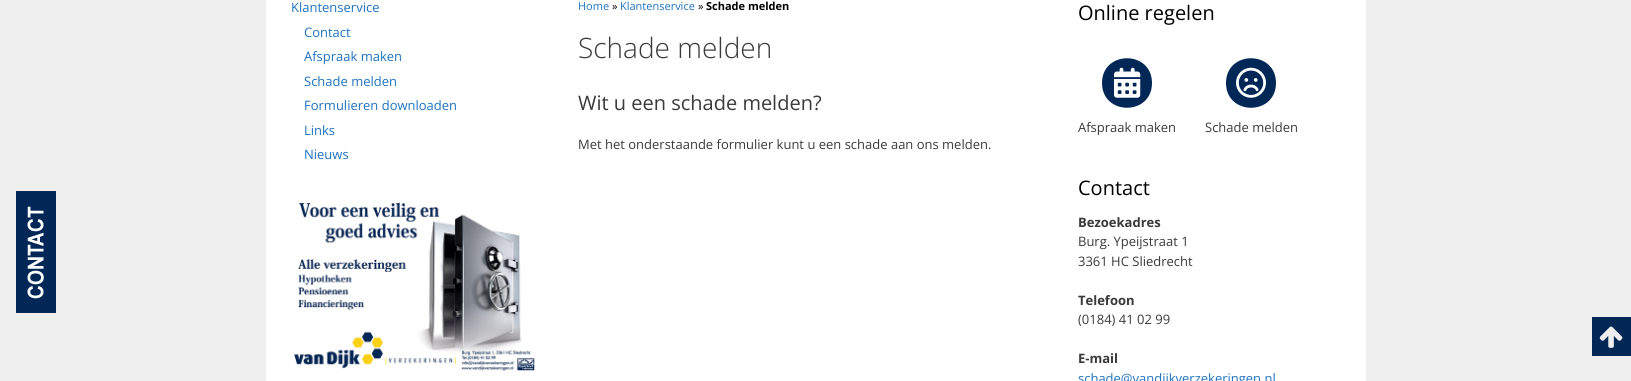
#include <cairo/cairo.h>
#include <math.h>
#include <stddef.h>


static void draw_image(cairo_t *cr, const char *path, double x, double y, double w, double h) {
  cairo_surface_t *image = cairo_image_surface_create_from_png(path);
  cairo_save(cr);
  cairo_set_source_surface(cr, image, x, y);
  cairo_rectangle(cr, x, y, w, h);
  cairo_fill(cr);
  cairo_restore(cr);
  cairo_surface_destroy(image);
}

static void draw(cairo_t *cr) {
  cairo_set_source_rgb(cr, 239 / 255.0, 239 / 255.0, 239 / 255.0);
  cairo_paint(cr);
  cairo_set_source_rgb(cr, 0, 39 / 255.0, 86 / 255.0);
  cairo_rectangle(cr, 16, 191, 40, 122);
  cairo_fill(cr);
  draw_image(cr, "images/1.png", 27, 206, 17, 93);
  cairo_set_source_rgb(cr, 1, 1, 1);
  cairo_rectangle(cr, 266, 0, 1100, 381);
  cairo_fill(cr);
  draw_image(cr, "images/2.png", 294, 202, 241, 169);
  cairo_set_source_rgb(cr, 0, 39 / 255.0, 86 / 255.0);
  cairo_new_path(cr);
  cairo_move_to(cr, 1152, 83);
  cairo_curve_to(cr, 1152, 116, 1102, 116, 1102, 83);
  cairo_curve_to(cr, 1102, 50, 1152, 50, 1152, 83);
  cairo_close_path(cr);
  cairo_fill(cr);
  draw_image(cr, "images/3.png", 1114, 67, 27, 31);
  cairo_new_path(cr);
  cairo_move_to(cr, 1276, 83);
  cairo_curve_to(cr, 1276, 116, 1226, 116, 1226, 83);
  cairo_curve_to(cr, 1226, 50, 1276, 50, 1276, 83);
  cairo_close_path(cr);
  cairo_fill(cr);
  draw_image(cr, "images/4.png", 1236, 67, 30, 31);
  cairo_rectangle(cr, 1592, 317, 39, 39);
  cairo_fill(cr);
  draw_image(cr, "images/5.png", 1599, 326, 24, 22);
  cairo_select_font_face(cr, "Open Sans", CAIRO_FONT_SLANT_NORMAL, CAIRO_FONT_WEIGHT_NORMAL);
  cairo_set_font_size(cr, 13);
  cairo_set_source_rgb(cr, 30 / 255.0, 115 / 255.0, 190 / 255.0);
  cairo_move_to(cr, 291, 12);
  cairo_show_text(cr, "Klantenservice");
  cairo_move_to(cr, 304, 37);
  cairo_show_text(cr, "Contact");
  cairo_move_to(cr, 304, 61);
  cairo_show_text(cr, "Afspraak maken");
  cairo_move_to(cr, 304, 86);
  cairo_show_text(cr, "Schade melden");
  cairo_move_to(cr, 304, 110);
  cairo_show_text(cr, "Formulieren downloaden");
  cairo_move_to(cr, 304, 135);
  cairo_show_text(cr, "Links");
  cairo_move_to(cr, 304, 159);
  cairo_show_text(cr, "Nieuws");
  cairo_set_font_size(cr, 11);
  cairo_move_to(cr, 578, 10);
  cairo_show_text(cr, "Home");
  cairo_set_source_rgb(cr, 0, 0, 0);
  cairo_move_to(cr, 612, 10);
  cairo_show_text(cr, "»");
  cairo_set_source_rgb(cr, 30 / 255.0, 115 / 255.0, 190 / 255.0);
  cairo_move_to(cr, 620, 10);
  cairo_show_text(cr, "Klantenservice");
  cairo_set_source_rgb(cr, 0, 0, 0);
  cairo_move_to(cr, 698, 10);
  cairo_show_text(cr, "»");
  cairo_select_font_face(cr, "Open Sans", CAIRO_FONT_SLANT_NORMAL, CAIRO_FONT_WEIGHT_BOLD);
  cairo_move_to(cr, 706, 10);
  cairo_show_text(cr, "Schade melden");
  cairo_select_font_face(cr, "Open Sans Light", CAIRO_FONT_SLANT_NORMAL, CAIRO_FONT_WEIGHT_NORMAL);
  cairo_set_font_size(cr, 28);
  cairo_set_source_rgb(cr, 58 / 255.0, 58 / 255.0, 58 / 255.0);
  cairo_move_to(cr, 578, 58);
  cairo_show_text(cr, "Schade melden");
  cairo_select_font_face(cr, "Open Sans", CAIRO_FONT_SLANT_NORMAL, CAIRO_FONT_WEIGHT_NORMAL);
  cairo_set_font_size(cr, 20);
  cairo_move_to(cr, 578, 110);
  cairo_show_text(cr, "Wit u een schade melden?");
  cairo_set_font_size(cr, 13);
  cairo_move_to(cr, 578, 149);
  cairo_show_text(cr, "Met het onderstaande formulier kunt u een schade aan ons melden.");
  cairo_set_font_size(cr, 20);
  cairo_set_source_rgb(cr, 0, 0, 0);
  cairo_move_to(cr, 1078, 20);
  cairo_show_text(cr, "Online regelen");
  cairo_set_font_size(cr, 13);
  cairo_set_source_rgb(cr, 58 / 255.0, 58 / 255.0, 58 / 255.0);
  cairo_move_to(cr, 1078, 132);
  cairo_show_text(cr, "Afspraak maken");
  cairo_move_to(cr, 1205, 132);
  cairo_show_text(cr, "Schade melden");
  cairo_set_font_size(cr, 20);
  cairo_set_source_rgb(cr, 0, 0, 0);
  cairo_move_to(cr, 1078, 195);
  cairo_show_text(cr, "Contact");
  cairo_select_font_face(cr, "Open Sans", CAIRO_FONT_SLANT_NORMAL, CAIRO_FONT_WEIGHT_BOLD);
  cairo_set_font_size(cr, 13);
  cairo_set_source_rgb(cr, 58 / 255.0, 58 / 255.0, 58 / 255.0);
  cairo_move_to(cr, 1078, 227);
  cairo_show_text(cr, "Bezoekadres");
  cairo_select_font_face(cr, "Open Sans", CAIRO_FONT_SLANT_NORMAL, CAIRO_FONT_WEIGHT_NORMAL);
  cairo_move_to(cr, 1078, 246);
  cairo_show_text(cr, "Burg. Ypeijstraat 1");
  cairo_move_to(cr, 1078, 266);
  cairo_show_text(cr, "3361 HC Sliedrecht");
  cairo_select_font_face(cr, "Open Sans", CAIRO_FONT_SLANT_NORMAL, CAIRO_FONT_WEIGHT_BOLD);
  cairo_move_to(cr, 1078, 305);
  cairo_show_text(cr, "Telefoon");
  cairo_select_font_face(cr, "Open Sans", CAIRO_FONT_SLANT_NORMAL, CAIRO_FONT_WEIGHT_NORMAL);
  cairo_move_to(cr, 1078, 324);
  cairo_show_text(cr, "(0184) 41 02 99");
  cairo_select_font_face(cr, "Open Sans", CAIRO_FONT_SLANT_NORMAL, CAIRO_FONT_WEIGHT_BOLD);
  cairo_move_to(cr, 1078, 363);
  cairo_show_text(cr, "E-mail");
  cairo_select_font_face(cr, "Open Sans", CAIRO_FONT_SLANT_NORMAL, CAIRO_FONT_WEIGHT_NORMAL);
  cairo_set_source_rgb(cr, 30 / 255.0, 115 / 255.0, 190 / 255.0);
  cairo_move_to(cr, 1078, 383);
  cairo_show_text(cr, "schade@vandijkverzekeringen.nl");
}

int main(void) {
  cairo_surface_t *surface = cairo_image_surface_create(CAIRO_FORMAT_RGB24, 1631, 381);
  cairo_t *cr = cairo_create(surface);
  cairo_font_options_t *options = cairo_font_options_create();
  cairo_font_options_set_hint_metrics(options, CAIRO_HINT_METRICS_OFF);
  cairo_font_options_set_hint_style(options, CAIRO_HINT_STYLE_NONE);
  cairo_set_font_options(cr, options);
  cairo_set_miter_limit(cr, 4);
  draw(cr);
  cairo_surface_write_to_png(surface, "out.png");
  cairo_font_options_destroy(options);
  cairo_destroy(cr);
  cairo_surface_destroy(surface);
  return 0;
}
